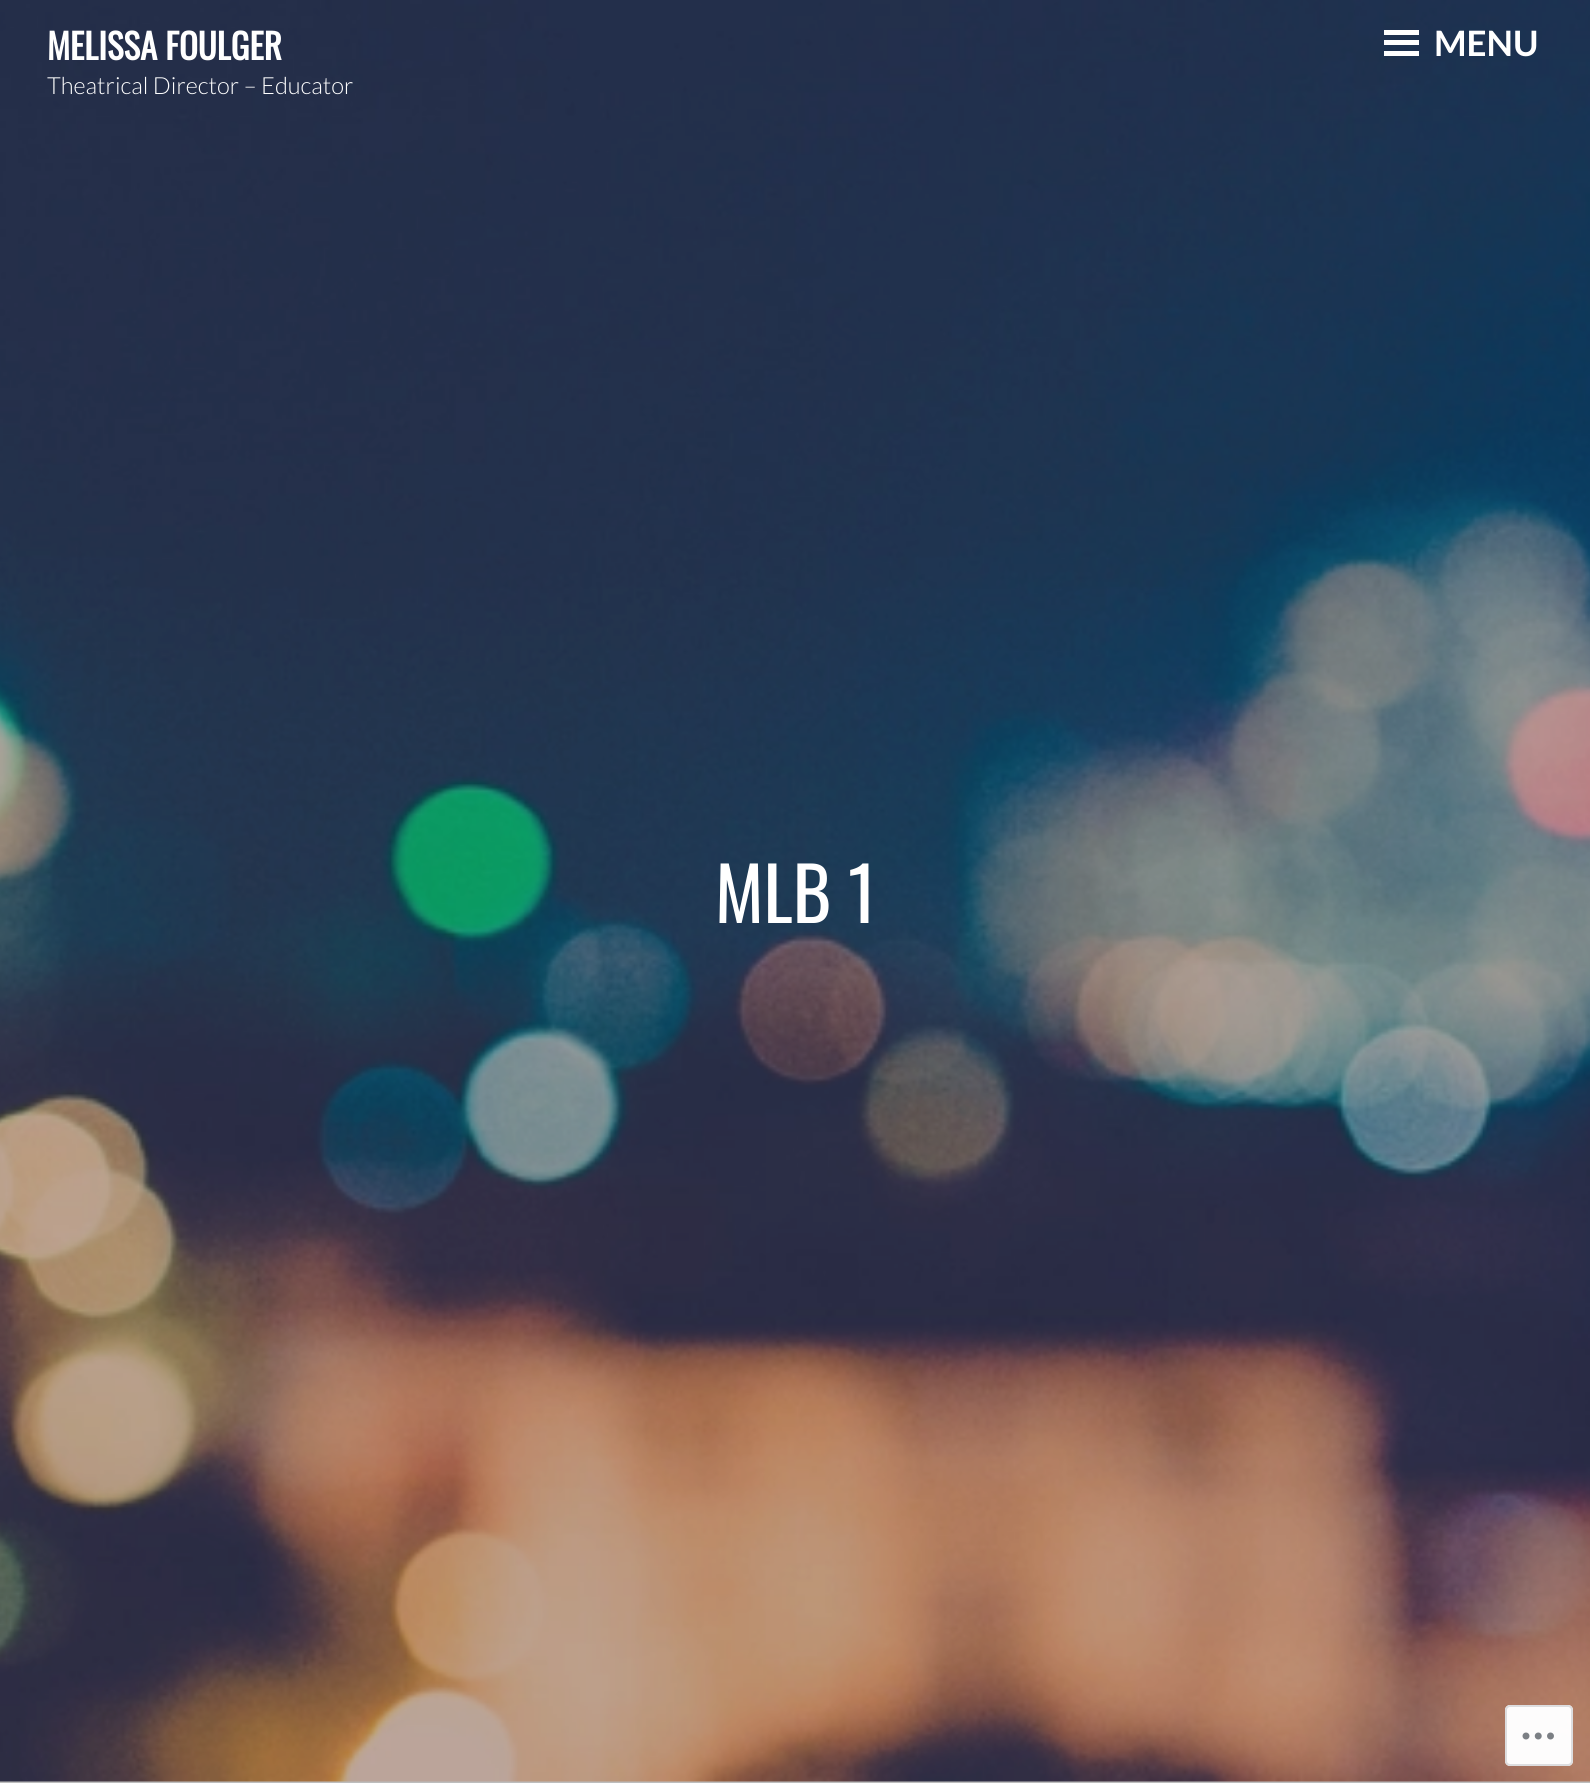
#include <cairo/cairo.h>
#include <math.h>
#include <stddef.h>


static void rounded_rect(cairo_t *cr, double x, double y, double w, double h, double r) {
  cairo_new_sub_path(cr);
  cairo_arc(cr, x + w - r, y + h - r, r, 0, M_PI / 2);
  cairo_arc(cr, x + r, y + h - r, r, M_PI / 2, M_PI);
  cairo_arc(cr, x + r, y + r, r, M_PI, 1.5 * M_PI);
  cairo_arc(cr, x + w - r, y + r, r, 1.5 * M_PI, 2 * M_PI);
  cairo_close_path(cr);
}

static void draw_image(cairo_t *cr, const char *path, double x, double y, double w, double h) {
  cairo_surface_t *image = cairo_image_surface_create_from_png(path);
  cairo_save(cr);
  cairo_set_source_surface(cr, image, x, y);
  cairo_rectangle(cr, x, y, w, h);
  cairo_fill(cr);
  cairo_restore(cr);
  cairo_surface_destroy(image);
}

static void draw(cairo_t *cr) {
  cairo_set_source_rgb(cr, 189 / 255.0, 189 / 255.0, 189 / 255.0);
  cairo_paint(cr);
  draw_image(cr, "images/1.png", 0, 0, 1590, 1782);
  cairo_set_source_rgb(cr, 1, 1, 1);
  cairo_rectangle(cr, 1384, 40, 35, 5);
  cairo_fill(cr);
  cairo_rectangle(cr, 1384, 30, 35, 5);
  cairo_fill(cr);
  cairo_rectangle(cr, 1384, 51, 35, 5);
  cairo_fill(cr);
  cairo_set_source_rgba(cr, 1, 1, 1, 0.98);
  rounded_rect(cr, 1505, 1705, 68, 61, 5);
  cairo_fill(cr);
  rounded_rect(cr, 1506, 1706, 66, 59, 4);
  cairo_set_source_rgba(cr, 220 / 255.0, 220 / 255.0, 222 / 255.0, 0.98);
  cairo_stroke(cr);
  draw_image(cr, "images/2.png", 1522, 1732, 32, 8);
  cairo_select_font_face(cr, "Oswald", CAIRO_FONT_SLANT_NORMAL, CAIRO_FONT_WEIGHT_BOLD);
  cairo_set_font_size(cr, 35);
  cairo_set_source_rgb(cr, 1, 1, 1);
  cairo_move_to(cr, 47, 60);
  cairo_show_text(cr, "MELISSA FOULGER");
  cairo_select_font_face(cr, "Lato Light", CAIRO_FONT_SLANT_NORMAL, CAIRO_FONT_WEIGHT_NORMAL);
  cairo_set_font_size(cr, 23.6);
  cairo_move_to(cr, 47, 94);
  cairo_show_text(cr, "Theatrical Director – Educator");
  cairo_select_font_face(cr, "Lato", CAIRO_FONT_SLANT_NORMAL, CAIRO_FONT_WEIGHT_BOLD);
  cairo_set_font_size(cr, 35);
  cairo_move_to(cr, 1434, 56);
  cairo_show_text(cr, "MENU");
  cairo_select_font_face(cr, "Oswald", CAIRO_FONT_SLANT_NORMAL, CAIRO_FONT_WEIGHT_NORMAL);
  cairo_set_font_size(cr, 73.5);
  cairo_move_to(cr, 715, 923);
  cairo_show_text(cr, "MLB 1");
}

int main(void) {
  cairo_surface_t *surface = cairo_image_surface_create(CAIRO_FORMAT_RGB24, 1590, 1783);
  cairo_t *cr = cairo_create(surface);
  cairo_font_options_t *options = cairo_font_options_create();
  cairo_font_options_set_hint_metrics(options, CAIRO_HINT_METRICS_OFF);
  cairo_font_options_set_hint_style(options, CAIRO_HINT_STYLE_NONE);
  cairo_set_font_options(cr, options);
  cairo_set_miter_limit(cr, 4);
  draw(cr);
  cairo_surface_write_to_png(surface, "out.png");
  cairo_font_options_destroy(options);
  cairo_destroy(cr);
  cairo_surface_destroy(surface);
  return 0;
}
